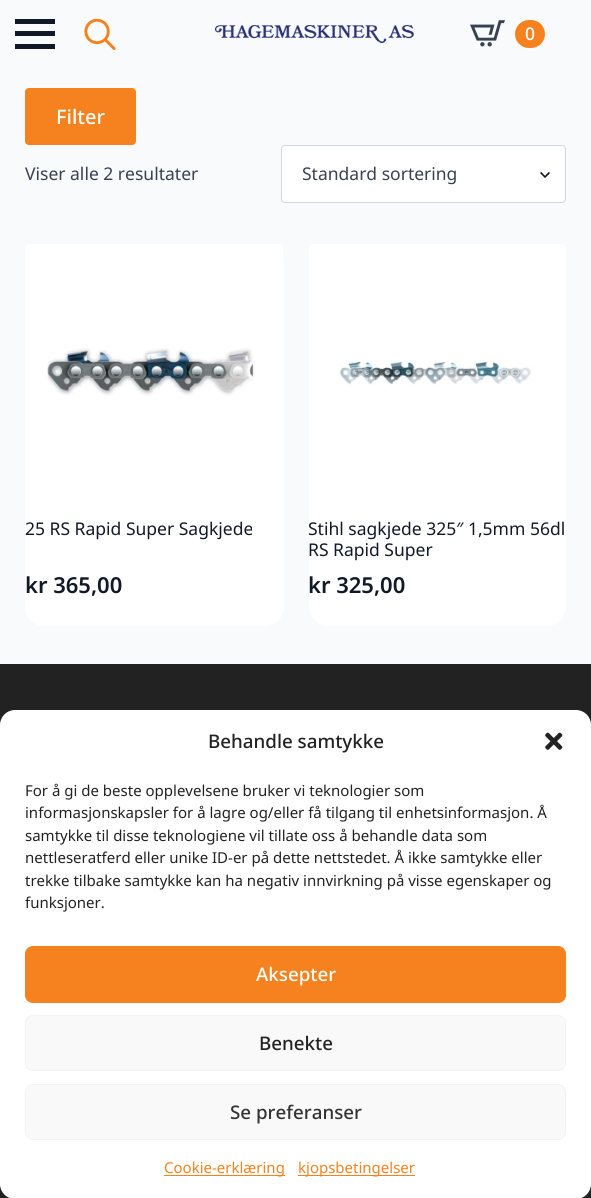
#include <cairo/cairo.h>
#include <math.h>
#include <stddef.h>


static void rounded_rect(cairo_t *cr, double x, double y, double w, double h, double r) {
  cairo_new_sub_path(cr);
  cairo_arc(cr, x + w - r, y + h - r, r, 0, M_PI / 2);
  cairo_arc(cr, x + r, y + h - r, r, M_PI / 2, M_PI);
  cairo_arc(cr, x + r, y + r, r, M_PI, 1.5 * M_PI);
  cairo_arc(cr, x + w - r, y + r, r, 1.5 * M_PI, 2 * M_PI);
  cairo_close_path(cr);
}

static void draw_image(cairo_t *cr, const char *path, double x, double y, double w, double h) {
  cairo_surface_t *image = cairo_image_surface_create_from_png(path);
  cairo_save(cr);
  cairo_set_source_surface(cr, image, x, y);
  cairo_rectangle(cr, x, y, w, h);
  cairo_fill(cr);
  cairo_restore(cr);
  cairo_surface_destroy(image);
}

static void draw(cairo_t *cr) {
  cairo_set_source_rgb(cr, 249 / 255.0, 250 / 255.0, 251 / 255.0);
  cairo_paint(cr);
  cairo_set_source_rgb(cr, 17 / 255.0, 24 / 255.0, 39 / 255.0);
  cairo_rectangle(cr, 15, 31, 40, 5);
  cairo_fill(cr);
  cairo_rectangle(cr, 15, 19, 40, 5);
  cairo_fill(cr);
  cairo_rectangle(cr, 15, 44, 40, 5);
  cairo_fill(cr);
  draw_image(cr, "images/1.png", 84, 19, 32, 31);
  draw_image(cr, "images/2.png", 215, 25, 199, 18);
  draw_image(cr, "images/3.png", 470, 20, 35, 27);
  cairo_set_source_rgb(cr, 246 / 255.0, 130 / 255.0, 31 / 255.0);
  rounded_rect(cr, 515, 20, 30, 28, 14);
  cairo_fill(cr);
  rounded_rect(cr, 25, 88, 111, 57, 4);
  cairo_fill(cr);
  cairo_set_source_rgb(cr, 1, 1, 1);
  rounded_rect(cr, 281.5, 145.5, 284, 57, 3.5);
  cairo_fill_preserve(cr);
  cairo_set_source_rgb(cr, 209 / 255.0, 213 / 255.0, 219 / 255.0);
  cairo_set_line_width(cr, 1);
  cairo_stroke(cr);
  draw_image(cr, "images/4.png", 540, 172, 10, 6);
  cairo_set_source_rgb(cr, 1, 1, 1);
  rounded_rect(cr, 25, 244, 259, 382, 19);
  cairo_fill(cr);
  draw_image(cr, "images/5.png", 25, 244, 258, 152);
  rounded_rect(cr, 309, 244, 257, 382, 19);
  cairo_fill(cr);
  draw_image(cr, "images/6.png", 309, 244, 257, 141);
  cairo_set_source_rgb(cr, 34 / 255.0, 34 / 255.0, 34 / 255.0);
  cairo_rectangle(cr, 0, 664, 591, 534);
  cairo_fill(cr);
  cairo_set_source_rgb(cr, 1, 1, 1);
  rounded_rect(cr, 0, 710, 591, 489, 15);
  cairo_fill(cr);
  draw_image(cr, "images/7.png", 545, 732, 18, 18);
  cairo_set_source_rgb(cr, 246 / 255.0, 130 / 255.0, 31 / 255.0);
  rounded_rect(cr, 25.5, 946.5, 540, 56, 7.5);
  cairo_fill_preserve(cr);
  cairo_stroke(cr);
  cairo_set_source_rgb(cr, 249 / 255.0, 249 / 255.0, 249 / 255.0);
  rounded_rect(cr, 25.5, 1015.5, 540, 55, 7.5);
  cairo_fill_preserve(cr);
  cairo_set_source_rgb(cr, 242 / 255.0, 242 / 255.0, 242 / 255.0);
  cairo_stroke(cr);
  cairo_set_source_rgb(cr, 249 / 255.0, 249 / 255.0, 249 / 255.0);
  rounded_rect(cr, 25.5, 1084.5, 540, 55, 7.5);
  cairo_fill_preserve(cr);
  cairo_set_source_rgb(cr, 242 / 255.0, 242 / 255.0, 242 / 255.0);
  cairo_stroke(cr);
  cairo_set_source_rgb(cr, 246 / 255.0, 130 / 255.0, 31 / 255.0);
  cairo_rectangle(cr, 164, 1175, 121, 1);
  cairo_fill(cr);
  cairo_rectangle(cr, 298, 1175, 117, 1);
  cairo_fill(cr);
  cairo_select_font_face(cr, "Noto Sans Medium", CAIRO_FONT_SLANT_NORMAL, CAIRO_FONT_WEIGHT_NORMAL);
  cairo_set_font_size(cr, 17.5);
  cairo_set_source_rgb(cr, 1, 1, 1);
  cairo_move_to(cr, 525, 40);
  cairo_show_text(cr, "0");
  cairo_set_font_size(cr, 20);
  cairo_move_to(cr, 56, 124);
  cairo_show_text(cr, "Filter");
  cairo_select_font_face(cr, "Noto Sans", CAIRO_FONT_SLANT_NORMAL, CAIRO_FONT_WEIGHT_NORMAL);
  cairo_set_font_size(cr, 17.5);
  cairo_set_source_rgb(cr, 55 / 255.0, 65 / 255.0, 81 / 255.0);
  cairo_move_to(cr, 25, 180);
  cairo_show_text(cr, "Viser alle 2 resultater");
  cairo_move_to(cr, 302, 180);
  cairo_show_text(cr, "Standard sortering");
  cairo_set_source_rgb(cr, 17 / 255.0, 24 / 255.0, 39 / 255.0);
  cairo_move_to(cr, 25, 535);
  cairo_show_text(cr, "25 RS Rapid Super Sagkjede");
  cairo_select_font_face(cr, "Noto Sans SemiBold", CAIRO_FONT_SLANT_NORMAL, CAIRO_FONT_WEIGHT_NORMAL);
  cairo_set_font_size(cr, 22);
  cairo_move_to(cr, 25, 593);
  cairo_show_text(cr, "kr 365,00");
  cairo_select_font_face(cr, "Noto Sans", CAIRO_FONT_SLANT_NORMAL, CAIRO_FONT_WEIGHT_NORMAL);
  cairo_set_font_size(cr, 17.5);
  cairo_move_to(cr, 308, 535);
  cairo_show_text(cr, "Stihl sagkjede 325″ 1,5mm 56dl");
  cairo_move_to(cr, 308, 556);
  cairo_show_text(cr, "RS Rapid Super");
  cairo_select_font_face(cr, "Noto Sans SemiBold", CAIRO_FONT_SLANT_NORMAL, CAIRO_FONT_WEIGHT_NORMAL);
  cairo_set_font_size(cr, 22);
  cairo_move_to(cr, 308, 593);
  cairo_show_text(cr, "kr 325,00");
  cairo_select_font_face(cr, "Noto Sans Medium", CAIRO_FONT_SLANT_NORMAL, CAIRO_FONT_WEIGHT_NORMAL);
  cairo_set_font_size(cr, 18.75);
  cairo_set_source_rgb(cr, 34 / 255.0, 34 / 255.0, 34 / 255.0);
  cairo_move_to(cr, 208, 748);
  cairo_show_text(cr, "Behandle samtykke");
  cairo_select_font_face(cr, "Noto Sans", CAIRO_FONT_SLANT_NORMAL, CAIRO_FONT_WEIGHT_NORMAL);
  cairo_set_font_size(cr, 15);
  cairo_move_to(cr, 25, 796);
  cairo_show_text(cr, "For å gi de beste opplevelsene bruker vi teknologier som");
  cairo_move_to(cr, 25, 818);
  cairo_show_text(cr, "informasjonskapsler for å lagre og/eller få tilgang til enhetsinformasjon. Å");
  cairo_move_to(cr, 25, 841);
  cairo_show_text(cr, "samtykke til disse teknologiene vil tillate oss å behandle data som");
  cairo_move_to(cr, 25, 863);
  cairo_show_text(cr, "nettleseratferd eller unike ID-er på dette nettstedet. Å ikke samtykke eller");
  cairo_move_to(cr, 25, 886);
  cairo_show_text(cr, "trekke tilbake samtykke kan ha negativ innvirkning på visse egenskaper og");
  cairo_move_to(cr, 25, 908);
  cairo_show_text(cr, "funksjoner.");
  cairo_select_font_face(cr, "Noto Sans Medium", CAIRO_FONT_SLANT_NORMAL, CAIRO_FONT_WEIGHT_NORMAL);
  cairo_set_font_size(cr, 18.75);
  cairo_set_source_rgb(cr, 1, 1, 1);
  cairo_move_to(cr, 256, 981);
  cairo_show_text(cr, "Aksepter");
  cairo_set_source_rgb(cr, 34 / 255.0, 34 / 255.0, 34 / 255.0);
  cairo_move_to(cr, 259, 1050);
  cairo_show_text(cr, "Benekte");
  cairo_set_source_rgb(cr, 51 / 255.0, 51 / 255.0, 51 / 255.0);
  cairo_move_to(cr, 230, 1119);
  cairo_show_text(cr, "Se preferanser");
  cairo_select_font_face(cr, "Noto Sans", CAIRO_FONT_SLANT_NORMAL, CAIRO_FONT_WEIGHT_NORMAL);
  cairo_set_font_size(cr, 15);
  cairo_set_source_rgb(cr, 246 / 255.0, 130 / 255.0, 31 / 255.0);
  cairo_move_to(cr, 164, 1173);
  cairo_show_text(cr, "Cookie-erklæring");
  cairo_move_to(cr, 298, 1173);
  cairo_show_text(cr, "kjopsbetingelser");
}

int main(void) {
  cairo_surface_t *surface = cairo_image_surface_create(CAIRO_FORMAT_RGB24, 591, 1198);
  cairo_t *cr = cairo_create(surface);
  cairo_font_options_t *options = cairo_font_options_create();
  cairo_font_options_set_hint_metrics(options, CAIRO_HINT_METRICS_OFF);
  cairo_font_options_set_hint_style(options, CAIRO_HINT_STYLE_NONE);
  cairo_set_font_options(cr, options);
  cairo_set_miter_limit(cr, 4);
  draw(cr);
  cairo_surface_write_to_png(surface, "out.png");
  cairo_font_options_destroy(options);
  cairo_destroy(cr);
  cairo_surface_destroy(surface);
  return 0;
}
